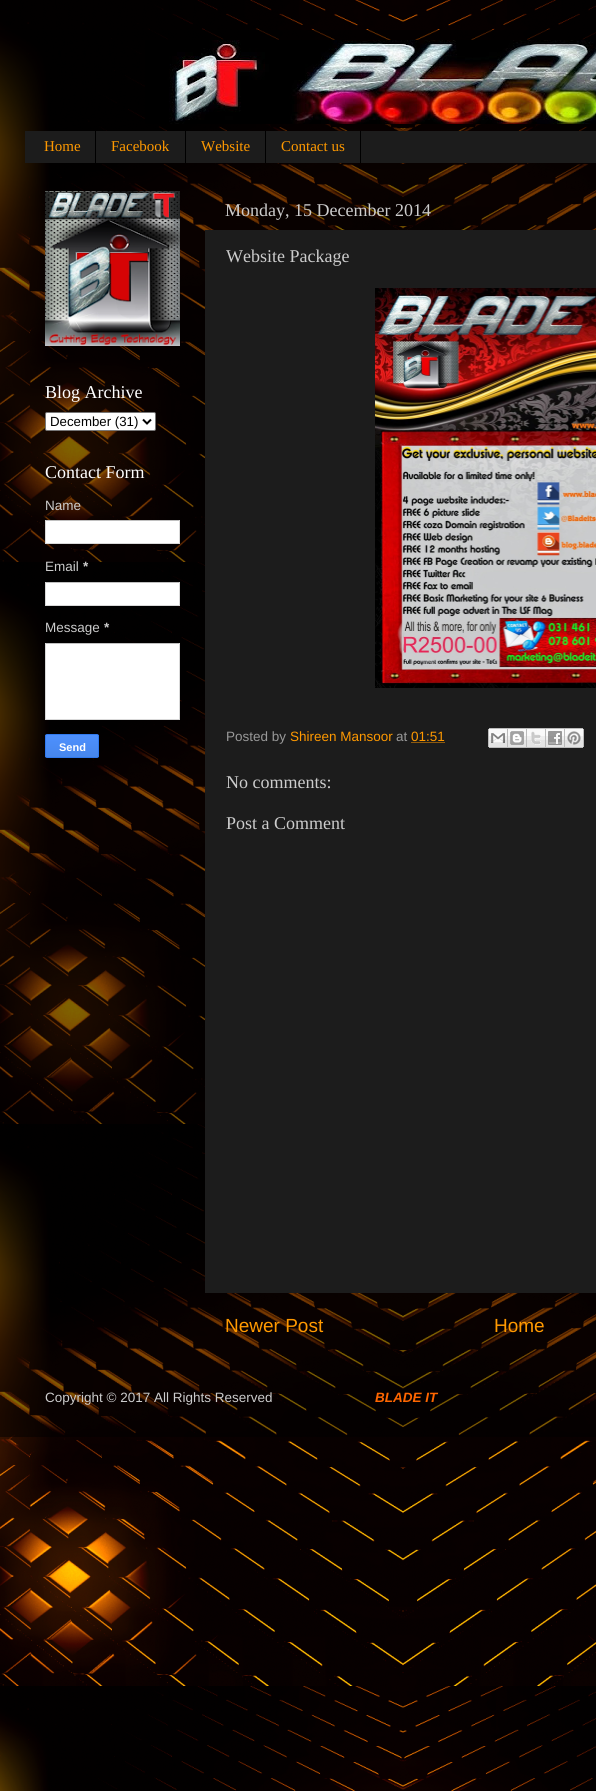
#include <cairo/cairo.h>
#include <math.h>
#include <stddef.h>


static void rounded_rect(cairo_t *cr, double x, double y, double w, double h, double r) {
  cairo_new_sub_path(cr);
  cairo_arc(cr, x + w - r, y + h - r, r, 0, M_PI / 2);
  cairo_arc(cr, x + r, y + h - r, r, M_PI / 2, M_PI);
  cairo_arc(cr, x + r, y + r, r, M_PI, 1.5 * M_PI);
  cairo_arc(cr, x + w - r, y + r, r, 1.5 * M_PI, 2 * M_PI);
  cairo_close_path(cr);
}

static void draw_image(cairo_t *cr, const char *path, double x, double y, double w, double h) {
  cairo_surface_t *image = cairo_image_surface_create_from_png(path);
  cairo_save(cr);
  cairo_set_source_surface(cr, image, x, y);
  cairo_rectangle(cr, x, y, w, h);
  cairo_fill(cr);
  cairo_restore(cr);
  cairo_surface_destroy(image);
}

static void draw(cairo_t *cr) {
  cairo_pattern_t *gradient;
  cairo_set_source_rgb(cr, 1, 1, 1);
  cairo_paint(cr);
  draw_image(cr, "images/1.png", 0, 0, 596, 1791);
  cairo_set_source_rgba(cr, 0, 0, 0, 0.5);
  cairo_rectangle(cr, 0, 30, 596, 1407);
  cairo_fill(cr);
  draw_image(cr, "images/2.png", 145, 40, 451, 84);
  cairo_set_source_rgb(cr, 28 / 255.0, 28 / 255.0, 28 / 255.0);
  cairo_rectangle(cr, 25, 131, 571, 32);
  cairo_fill(cr);
  cairo_set_source_rgb(cr, 0, 0, 0);
  cairo_rectangle(cr, 95, 131, 1, 32);
  cairo_fill(cr);
  cairo_rectangle(cr, 185, 131, 1, 32);
  cairo_fill(cr);
  cairo_rectangle(cr, 265, 131, 1, 32);
  cairo_fill(cr);
  cairo_rectangle(cr, 360, 131, 1, 32);
  cairo_fill(cr);
  draw_image(cr, "images/3.png", 45, 191, 135, 155);
  cairo_set_source_rgb(cr, 1, 1, 1);
  rounded_rect(cr, 45.5, 412.5, 110, 18, 1.5);
  cairo_fill_preserve(cr);
  cairo_set_source_rgb(cr, 118 / 255.0, 118 / 255.0, 118 / 255.0);
  cairo_set_line_width(cr, 1);
  cairo_stroke(cr);
  cairo_new_path(cr);
  cairo_move_to(cr, 143, 419.5);
  cairo_line_to(cr, 147, 423.5);
  cairo_line_to(cr, 151, 419.5);
  cairo_set_source_rgb(cr, 0, 0, 0);
  cairo_set_line_width(cr, 2);
  cairo_stroke(cr);
  cairo_set_source_rgb(cr, 1, 1, 1);
  cairo_rectangle(cr, 46, 521, 133, 22);
  cairo_fill(cr);
  cairo_set_source_rgb(cr, 192 / 255.0, 192 / 255.0, 192 / 255.0);
  cairo_rectangle(cr, 45, 520, 135, 1);
  cairo_fill(cr);
  cairo_set_source_rgb(cr, 217 / 255.0, 217 / 255.0, 217 / 255.0);
  cairo_rectangle(cr, 179, 520, 1, 24);
  cairo_fill(cr);
  cairo_rectangle(cr, 45, 543, 135, 1);
  cairo_fill(cr);
  cairo_rectangle(cr, 45, 520, 1, 24);
  cairo_fill(cr);
  cairo_set_source_rgb(cr, 1, 1, 1);
  cairo_rectangle(cr, 46, 583, 133, 22);
  cairo_fill(cr);
  cairo_set_source_rgb(cr, 192 / 255.0, 192 / 255.0, 192 / 255.0);
  cairo_rectangle(cr, 45, 582, 135, 1);
  cairo_fill(cr);
  cairo_set_source_rgb(cr, 217 / 255.0, 217 / 255.0, 217 / 255.0);
  cairo_rectangle(cr, 179, 582, 1, 24);
  cairo_fill(cr);
  cairo_rectangle(cr, 45, 605, 135, 1);
  cairo_fill(cr);
  cairo_rectangle(cr, 45, 582, 1, 24);
  cairo_fill(cr);
  cairo_set_source_rgb(cr, 1, 1, 1);
  cairo_rectangle(cr, 46, 644, 133, 75);
  cairo_fill(cr);
  cairo_set_source_rgb(cr, 192 / 255.0, 192 / 255.0, 192 / 255.0);
  cairo_rectangle(cr, 45, 643, 135, 1);
  cairo_fill(cr);
  cairo_set_source_rgb(cr, 217 / 255.0, 217 / 255.0, 217 / 255.0);
  cairo_rectangle(cr, 179, 643, 1, 77);
  cairo_fill(cr);
  cairo_rectangle(cr, 45, 719, 135, 1);
  cairo_fill(cr);
  cairo_rectangle(cr, 45, 643, 1, 77);
  cairo_fill(cr);
  cairo_save(cr);
  rounded_rect(cr, 45, 734, 54, 24, 2);
  cairo_clip(cr);
  gradient = cairo_pattern_create_linear(72, 735, 72, 757);
  cairo_pattern_add_color_stop_rgba(gradient, 0, 77 / 255.0, 144 / 255.0, 254 / 255.0, 1);
  cairo_pattern_add_color_stop_rgba(gradient, 1, 71 / 255.0, 135 / 255.0, 237 / 255.0, 1);
  cairo_set_source(cr, gradient);
  cairo_pattern_destroy(gradient);
  cairo_rectangle(cr, 45, 735, 54, 22);
  cairo_fill(cr);
  cairo_restore(cr);
  rounded_rect(cr, 45.5, 734.5, 53, 23, 1.5);
  cairo_set_source_rgb(cr, 48 / 255.0, 121 / 255.0, 237 / 255.0);
  cairo_set_line_width(cr, 1);
  cairo_stroke(cr);
  cairo_set_source_rgb(cr, 28 / 255.0, 28 / 255.0, 28 / 255.0);
  cairo_rectangle(cr, 205, 230, 391, 1063);
  cairo_fill(cr);
  draw_image(cr, "images/4.png", 375, 288, 221, 400);
  cairo_new_path(cr);
  cairo_move_to(cr, 411.5, 742.5);
  cairo_line_to(cr, 445, 742.5);
  cairo_set_source_rgb(cr, 1, 153 / 255.0, 0);
  cairo_set_dash(cr, (double[]){1, 1}, 2, 0);
  cairo_stroke(cr);
  draw_image(cr, "images/5.png", 488, 728, 20, 20);
  draw_image(cr, "images/6.png", 508, 728, 19, 20);
  draw_image(cr, "images/7.png", 527, 728, 19, 20);
  draw_image(cr, "images/8.png", 546, 728, 19, 20);
  draw_image(cr, "images/9.png", 565, 728, 19, 20);
  cairo_select_font_face(cr, "Liberation Serif", CAIRO_FONT_SLANT_NORMAL, CAIRO_FONT_WEIGHT_NORMAL);
  cairo_set_font_size(cr, 15);
  cairo_move_to(cr, 44, 151);
  cairo_show_text(cr, "Home");
  cairo_move_to(cr, 111, 151);
  cairo_show_text(cr, "Facebook");
  cairo_move_to(cr, 201, 151);
  cairo_show_text(cr, "Website");
  cairo_move_to(cr, 281, 151);
  cairo_show_text(cr, "Contact us");
  cairo_set_font_size(cr, 18);
  cairo_set_source_rgb(cr, 1, 1, 1);
  cairo_move_to(cr, 45, 398);
  cairo_show_text(cr, "Blog Archive");
  cairo_select_font_face(cr, "Liberation Sans", CAIRO_FONT_SLANT_NORMAL, CAIRO_FONT_WEIGHT_NORMAL);
  cairo_set_font_size(cr, 13.25);
  cairo_set_source_rgb(cr, 0, 0, 0);
  cairo_move_to(cr, 50, 426);
  cairo_show_text(cr, "December (31)");
  cairo_select_font_face(cr, "Liberation Serif", CAIRO_FONT_SLANT_NORMAL, CAIRO_FONT_WEIGHT_NORMAL);
  cairo_set_font_size(cr, 18);
  cairo_set_source_rgb(cr, 1, 1, 1);
  cairo_move_to(cr, 45, 478);
  cairo_show_text(cr, "Contact Form");
  cairo_select_font_face(cr, "Liberation Sans", CAIRO_FONT_SLANT_NORMAL, CAIRO_FONT_WEIGHT_NORMAL);
  cairo_set_font_size(cr, 13.5);
  cairo_set_source_rgb(cr, 204 / 255.0, 204 / 255.0, 204 / 255.0);
  cairo_move_to(cr, 45, 510);
  cairo_show_text(cr, "Name");
  cairo_move_to(cr, 45, 571);
  cairo_show_text(cr, "Email");
  cairo_select_font_face(cr, "Liberation Sans", CAIRO_FONT_SLANT_NORMAL, CAIRO_FONT_WEIGHT_BOLD);
  cairo_move_to(cr, 83, 571);
  cairo_show_text(cr, "*");
  cairo_select_font_face(cr, "Liberation Sans", CAIRO_FONT_SLANT_NORMAL, CAIRO_FONT_WEIGHT_NORMAL);
  cairo_move_to(cr, 45, 632);
  cairo_show_text(cr, "Message");
  cairo_select_font_face(cr, "Liberation Sans", CAIRO_FONT_SLANT_NORMAL, CAIRO_FONT_WEIGHT_BOLD);
  cairo_move_to(cr, 104, 632);
  cairo_show_text(cr, "*");
  cairo_set_font_size(cr, 11);
  cairo_set_source_rgb(cr, 1, 1, 1);
  cairo_move_to(cr, 59, 751);
  cairo_show_text(cr, "Send");
  cairo_select_font_face(cr, "Liberation Serif", CAIRO_FONT_SLANT_NORMAL, CAIRO_FONT_WEIGHT_NORMAL);
  cairo_set_font_size(cr, 18);
  cairo_set_source_rgb(cr, 204 / 255.0, 204 / 255.0, 204 / 255.0);
  cairo_move_to(cr, 225, 216);
  cairo_show_text(cr, "Monday, 15 December 2014");
  cairo_move_to(cr, 226, 262);
  cairo_show_text(cr, "Website Package");
  cairo_select_font_face(cr, "Liberation Sans", CAIRO_FONT_SLANT_NORMAL, CAIRO_FONT_WEIGHT_NORMAL);
  cairo_set_font_size(cr, 13.5);
  cairo_set_source_rgb(cr, 153 / 255.0, 153 / 255.0, 153 / 255.0);
  cairo_move_to(cr, 226, 741);
  cairo_show_text(cr, "Posted by");
  cairo_set_source_rgb(cr, 1, 153 / 255.0, 0);
  cairo_move_to(cr, 290, 741);
  cairo_show_text(cr, "Shireen Mansoor");
  cairo_set_source_rgb(cr, 153 / 255.0, 153 / 255.0, 153 / 255.0);
  cairo_move_to(cr, 396, 741);
  cairo_show_text(cr, "at");
  cairo_set_source_rgb(cr, 1, 153 / 255.0, 0);
  cairo_move_to(cr, 411, 741);
  cairo_show_text(cr, "01:51");
  cairo_select_font_face(cr, "Liberation Serif", CAIRO_FONT_SLANT_NORMAL, CAIRO_FONT_WEIGHT_NORMAL);
  cairo_set_font_size(cr, 18);
  cairo_set_source_rgb(cr, 204 / 255.0, 204 / 255.0, 204 / 255.0);
  cairo_move_to(cr, 226, 788);
  cairo_show_text(cr, "No comments:");
  cairo_move_to(cr, 226, 829);
  cairo_show_text(cr, "Post a Comment");
  cairo_select_font_face(cr, "Liberation Sans", CAIRO_FONT_SLANT_NORMAL, CAIRO_FONT_WEIGHT_NORMAL);
  cairo_set_font_size(cr, 19);
  cairo_set_source_rgb(cr, 1, 153 / 255.0, 0);
  cairo_move_to(cr, 225, 1332);
  cairo_show_text(cr, "Newer Post");
  cairo_move_to(cr, 494, 1332);
  cairo_show_text(cr, "Home");
  cairo_set_font_size(cr, 13.5);
  cairo_set_source_rgb(cr, 204 / 255.0, 204 / 255.0, 204 / 255.0);
  cairo_move_to(cr, 45, 1402);
  cairo_show_text(cr, "Copyright © 2017 All Rights Reserved");
  cairo_select_font_face(cr, "Liberation Sans", CAIRO_FONT_SLANT_ITALIC, CAIRO_FONT_WEIGHT_BOLD);
  cairo_set_source_rgb(cr, 1, 102 / 255.0, 0);
  cairo_move_to(cr, 375, 1402);
  cairo_show_text(cr, "BLADE IT");
}

int main(void) {
  cairo_surface_t *surface = cairo_image_surface_create(CAIRO_FORMAT_RGB24, 596, 1791);
  cairo_t *cr = cairo_create(surface);
  cairo_font_options_t *options = cairo_font_options_create();
  cairo_font_options_set_hint_metrics(options, CAIRO_HINT_METRICS_OFF);
  cairo_font_options_set_hint_style(options, CAIRO_HINT_STYLE_NONE);
  cairo_set_font_options(cr, options);
  cairo_set_miter_limit(cr, 4);
  draw(cr);
  cairo_surface_write_to_png(surface, "out.png");
  cairo_font_options_destroy(options);
  cairo_destroy(cr);
  cairo_surface_destroy(surface);
  return 0;
}
